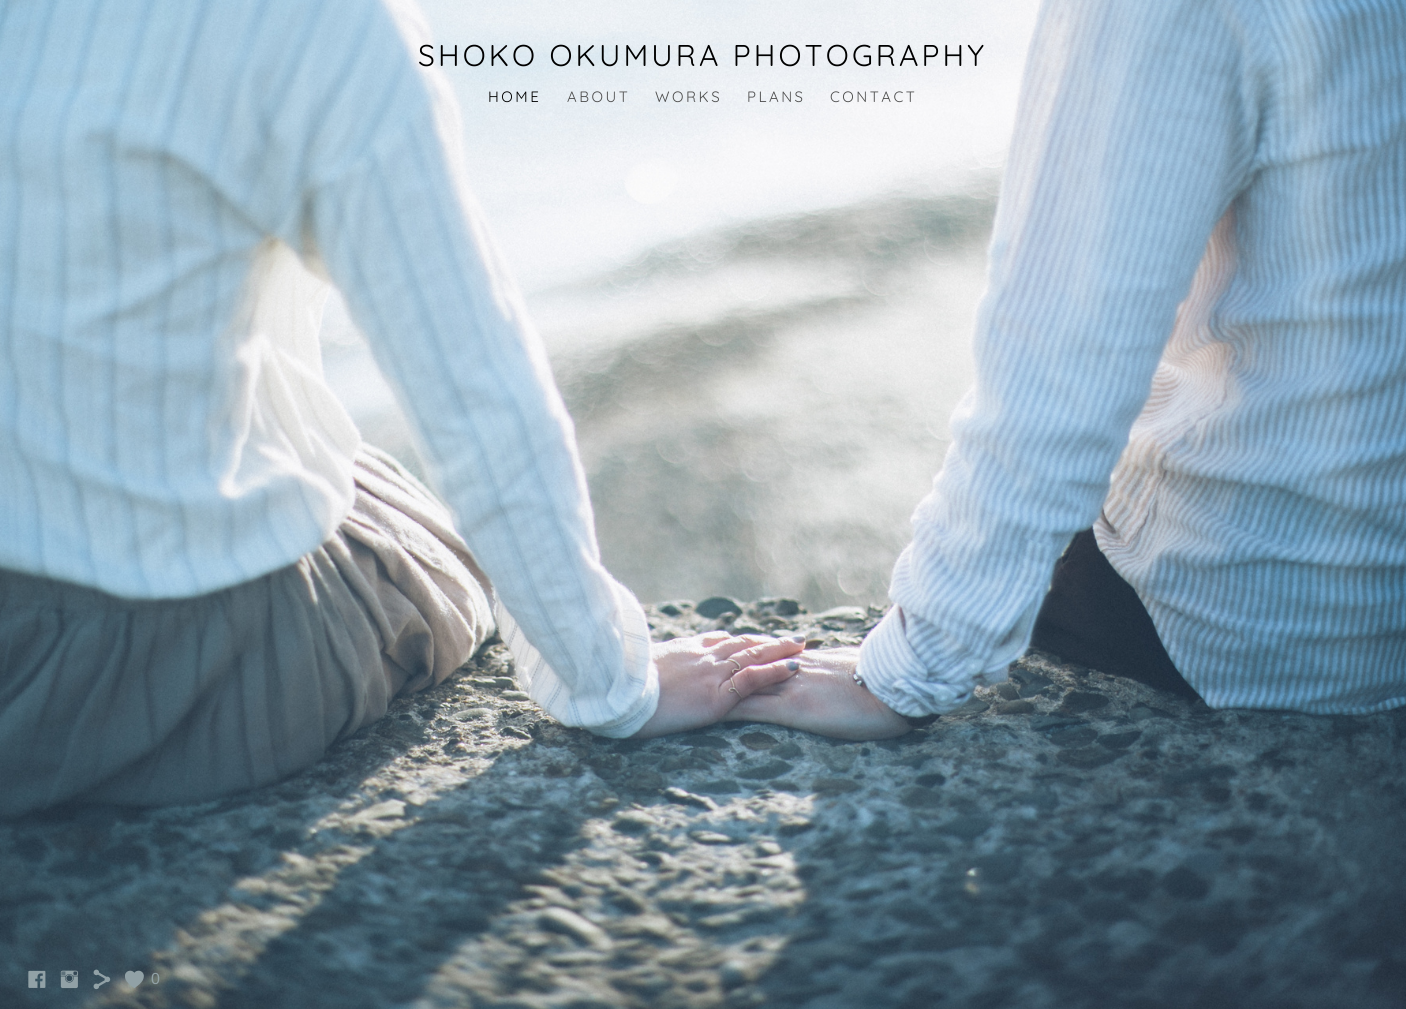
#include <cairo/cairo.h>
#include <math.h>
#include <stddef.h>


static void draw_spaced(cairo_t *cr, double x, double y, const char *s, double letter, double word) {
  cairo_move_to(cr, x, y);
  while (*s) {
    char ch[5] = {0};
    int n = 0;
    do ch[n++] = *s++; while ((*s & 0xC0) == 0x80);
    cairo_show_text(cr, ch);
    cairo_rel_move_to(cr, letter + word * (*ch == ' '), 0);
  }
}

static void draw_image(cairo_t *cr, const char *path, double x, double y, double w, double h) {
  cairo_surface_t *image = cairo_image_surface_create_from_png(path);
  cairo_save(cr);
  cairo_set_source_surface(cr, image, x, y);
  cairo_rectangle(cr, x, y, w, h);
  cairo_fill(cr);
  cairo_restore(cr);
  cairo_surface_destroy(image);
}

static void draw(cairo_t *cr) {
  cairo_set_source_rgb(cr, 1, 1, 1);
  cairo_paint(cr);
  draw_image(cr, "images/1.png", 0, 0, 1406, 1009);
  draw_image(cr, "images/2.png", 28, 970, 18, 18);
  draw_image(cr, "images/3.png", 60, 970, 18, 19);
  draw_image(cr, "images/4.png", 93, 969, 18, 21);
  draw_image(cr, "images/5.png", 125, 970, 19, 18);
  cairo_select_font_face(cr, "Quicksand", CAIRO_FONT_SLANT_NORMAL, CAIRO_FONT_WEIGHT_NORMAL);
  cairo_set_font_size(cr, 30);
  cairo_set_source_rgb(cr, 0, 0, 0);
  draw_spaced(cr, 418, 66, "SHOKO OKUMURA PHOTOGRAPHY", 3.1, 0);
  cairo_set_font_size(cr, 15);
  draw_spaced(cr, 488, 102, "HOME", 2.5, 0);
  cairo_set_source_rgb(cr, 79 / 255.0, 79 / 255.0, 79 / 255.0);
  draw_spaced(cr, 567, 102, "ABOUT", 2.5, 0);
  draw_spaced(cr, 655, 102, "WORKS", 2.5, 0);
  draw_spaced(cr, 747, 102, "PLANS", 2.5, 0);
  draw_spaced(cr, 830, 102, "CONTACT", 2.5, 0);
  cairo_select_font_face(cr, "Liberation Sans", CAIRO_FONT_SLANT_NORMAL, CAIRO_FONT_WEIGHT_NORMAL);
  cairo_set_font_size(cr, 16);
  cairo_set_source_rgb(cr, 145 / 255.0, 161 / 255.0, 166 / 255.0);
  cairo_move_to(cr, 151, 984);
  cairo_show_text(cr, "0");
}

int main(void) {
  cairo_surface_t *surface = cairo_image_surface_create(CAIRO_FORMAT_RGB24, 1406, 1009);
  cairo_t *cr = cairo_create(surface);
  cairo_font_options_t *options = cairo_font_options_create();
  cairo_font_options_set_hint_metrics(options, CAIRO_HINT_METRICS_OFF);
  cairo_font_options_set_hint_style(options, CAIRO_HINT_STYLE_NONE);
  cairo_set_font_options(cr, options);
  cairo_set_miter_limit(cr, 4);
  draw(cr);
  cairo_surface_write_to_png(surface, "out.png");
  cairo_font_options_destroy(options);
  cairo_destroy(cr);
  cairo_surface_destroy(surface);
  return 0;
}
